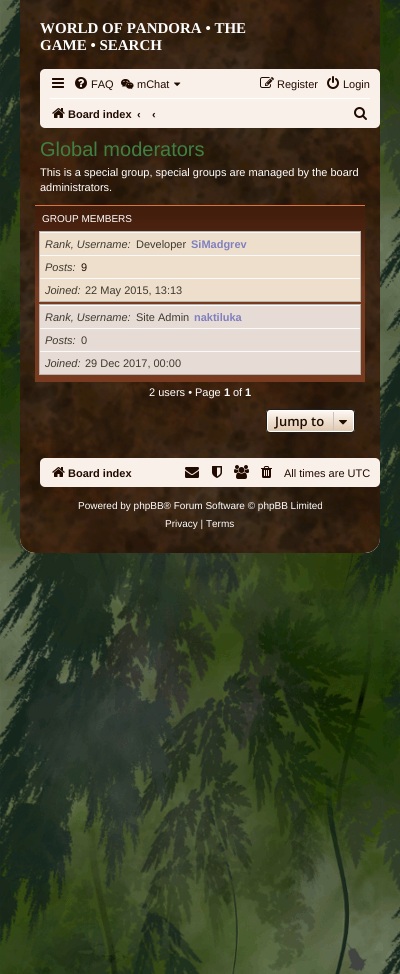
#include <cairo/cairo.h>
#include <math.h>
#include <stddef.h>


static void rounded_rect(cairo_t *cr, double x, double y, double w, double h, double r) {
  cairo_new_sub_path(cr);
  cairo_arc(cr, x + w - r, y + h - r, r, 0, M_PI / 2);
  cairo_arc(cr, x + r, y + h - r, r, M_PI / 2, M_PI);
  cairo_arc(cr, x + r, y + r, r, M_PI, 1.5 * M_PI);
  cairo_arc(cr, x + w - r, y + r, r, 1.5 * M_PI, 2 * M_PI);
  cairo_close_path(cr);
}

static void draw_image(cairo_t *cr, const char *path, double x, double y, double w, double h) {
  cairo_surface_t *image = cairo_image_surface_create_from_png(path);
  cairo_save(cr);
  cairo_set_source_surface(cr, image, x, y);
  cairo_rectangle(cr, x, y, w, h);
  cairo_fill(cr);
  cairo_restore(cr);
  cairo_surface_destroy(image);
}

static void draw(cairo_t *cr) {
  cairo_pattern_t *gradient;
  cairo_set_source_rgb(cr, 1, 1, 1);
  cairo_paint(cr);
  draw_image(cr, "images/1.png", 0, 553, 400, 421);
  draw_image(cr, "images/2.png", 0, 0, 400, 553);
  cairo_set_source_rgb(cr, 1, 1, 1);
  rounded_rect(cr, 20, -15, 360, 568, 15);
  cairo_fill(cr);
  draw_image(cr, "images/3.png", 20, 0, 360, 553);
  cairo_set_source_rgb(cr, 249 / 255.0, 240 / 255.0, 234 / 255.0);
  rounded_rect(cr, 40, 69, 340, 59, 5);
  cairo_fill(cr);
  draw_image(cr, "images/4.png", 52, 78, 12, 10);
  draw_image(cr, "images/5.png", 75, 77, 12, 12);
  draw_image(cr, "images/6.png", 121, 79, 13, 11);
  draw_image(cr, "images/7.png", 174, 82, 7, 4);
  draw_image(cr, "images/8.png", 260, 77, 14, 11);
  draw_image(cr, "images/9.png", 327, 76, 12, 13);
  cairo_set_source_rgb(cr, 1, 1, 1);
  cairo_rectangle(cr, 50, 98, 320, 1);
  cairo_fill(cr);
  draw_image(cr, "images/10.png", 52, 108, 13, 10);
  draw_image(cr, "images/11.png", 354, 107, 13, 13);
  cairo_set_source_rgb(cr, 120 / 255.0, 59 / 255.0, 31 / 255.0);
  cairo_rectangle(cr, 35, 287, 330, 95);
  cairo_fill(cr);
  draw_image(cr, "images/12.png", 35, 205, 330, 82);
  cairo_set_source_rgb(cr, 238 / 255.0, 223 / 255.0, 204 / 255.0);
  cairo_rectangle(cr, 40, 233, 320, 68);
  cairo_fill(cr);
  cairo_rectangle(cr, 39.5, 231.5, 321, 70);
  cairo_set_source_rgb(cr, 182 / 255.0, 182 / 255.0, 177 / 255.0);
  cairo_set_line_width(cr, 1);
  cairo_stroke(cr);
  cairo_set_source_rgb(cr, 250 / 255.0, 250 / 255.0, 250 / 255.0);
  cairo_rectangle(cr, 40, 232, 320, 1);
  cairo_fill(cr);
  cairo_rectangle(cr, 40, 255, 320, 1);
  cairo_fill(cr);
  cairo_rectangle(cr, 40, 278, 320, 1);
  cairo_fill(cr);
  cairo_set_source_rgb(cr, 231 / 255.0, 220 / 255.0, 213 / 255.0);
  cairo_rectangle(cr, 40, 306, 320, 68);
  cairo_fill(cr);
  cairo_rectangle(cr, 39.5, 304.5, 321, 70);
  cairo_set_source_rgb(cr, 182 / 255.0, 182 / 255.0, 177 / 255.0);
  cairo_stroke(cr);
  cairo_set_source_rgb(cr, 250 / 255.0, 250 / 255.0, 250 / 255.0);
  cairo_rectangle(cr, 40, 305, 320, 1);
  cairo_fill(cr);
  cairo_rectangle(cr, 40, 328, 320, 1);
  cairo_fill(cr);
  cairo_rectangle(cr, 40, 351, 320, 1);
  cairo_fill(cr);
  cairo_save(cr);
  rounded_rect(cr, 266, 409, 89, 24, 4);
  cairo_clip(cr);
  gradient = cairo_pattern_create_linear(311, 410, 311, 432);
  cairo_pattern_add_color_stop_rgba(gradient, 0, 1, 250 / 255.0, 245 / 255.0, 1);
  cairo_pattern_add_color_stop_rgba(gradient, 1, 222 / 255.0, 198 / 255.0, 173 / 255.0, 1);
  cairo_set_source(cr, gradient);
  cairo_pattern_destroy(gradient);
  cairo_rectangle(cr, 266, 410, 89, 22);
  cairo_fill(cr);
  cairo_restore(cr);
  rounded_rect(cr, 267.5, 410.5, 86, 21, 2.5);
  cairo_set_source_rgb(cr, 1, 1, 1);
  cairo_stroke(cr);
  rounded_rect(cr, 266.5, 409.5, 88, 23, 3.5);
  cairo_set_source_rgb(cr, 30 / 255.0, 30 / 255.0, 30 / 255.0);
  cairo_stroke(cr);
  cairo_set_source_rgb(cr, 199 / 255.0, 195 / 255.0, 191 / 255.0);
  cairo_rectangle(cr, 333, 412, 1, 18);
  cairo_fill(cr);
  draw_image(cr, "images/13.png", 339, 420, 8, 5);
  cairo_set_source_rgb(cr, 249 / 255.0, 240 / 255.0, 234 / 255.0);
  rounded_rect(cr, 40, 458, 340, 29, 5);
  cairo_fill(cr);
  draw_image(cr, "images/10.png", 52, 467, 13, 10);
  draw_image(cr, "images/14.png", 185, 467, 14, 11);
  draw_image(cr, "images/15.png", 212, 466, 10, 12);
  draw_image(cr, "images/16.png", 234, 465, 15, 14);
  draw_image(cr, "images/17.png", 261, 466, 11, 12);
  cairo_select_font_face(cr, "Liberation Serif", CAIRO_FONT_SLANT_NORMAL, CAIRO_FONT_WEIGHT_BOLD);
  cairo_set_font_size(cr, 15);
  cairo_set_source_rgb(cr, 1, 1, 1);
  cairo_move_to(cr, 40, 33);
  cairo_show_text(cr, "WORLD OF PANDORA • THE");
  cairo_move_to(cr, 40, 50);
  cairo_show_text(cr, "GAME • SEARCH");
  cairo_select_font_face(cr, "Liberation Sans", CAIRO_FONT_SLANT_NORMAL, CAIRO_FONT_WEIGHT_NORMAL);
  cairo_set_font_size(cr, 11);
  cairo_set_source_rgb(cr, 33 / 255.0, 11 / 255.0, 0);
  cairo_move_to(cr, 91, 88);
  cairo_show_text(cr, "FAQ");
  cairo_move_to(cr, 137, 88);
  cairo_show_text(cr, "mChat");
  cairo_move_to(cr, 277, 88);
  cairo_show_text(cr, "Register");
  cairo_move_to(cr, 343, 88);
  cairo_show_text(cr, "Login");
  cairo_select_font_face(cr, "Liberation Sans", CAIRO_FONT_SLANT_NORMAL, CAIRO_FONT_WEIGHT_BOLD);
  cairo_move_to(cr, 68, 118);
  cairo_show_text(cr, "Board index");
  cairo_move_to(cr, 137, 118);
  cairo_show_text(cr, "‹");
  cairo_move_to(cr, 152, 118);
  cairo_show_text(cr, "‹");
  cairo_select_font_face(cr, "Liberation Sans", CAIRO_FONT_SLANT_NORMAL, CAIRO_FONT_WEIGHT_NORMAL);
  cairo_set_font_size(cr, 20);
  cairo_set_source_rgb(cr, 64 / 255.0, 128 / 255.0, 64 / 255.0);
  cairo_move_to(cr, 40, 156);
  cairo_show_text(cr, "Global moderators");
  cairo_set_font_size(cr, 11);
  cairo_set_source_rgb(cr, 1, 1, 1);
  cairo_move_to(cr, 40, 176);
  cairo_show_text(cr, "This is a special group, special groups are managed by the board");
  cairo_move_to(cr, 40, 191);
  cairo_show_text(cr, "administrators.");
  cairo_set_font_size(cr, 10);
  cairo_move_to(cr, 42, 222);
  cairo_show_text(cr, "GROUP MEMBERS");
  cairo_select_font_face(cr, "Liberation Sans", CAIRO_FONT_SLANT_ITALIC, CAIRO_FONT_WEIGHT_NORMAL);
  cairo_set_font_size(cr, 11);
  cairo_set_source_rgb(cr, 63 / 255.0, 57 / 255.0, 46 / 255.0);
  cairo_move_to(cr, 45, 248);
  cairo_show_text(cr, "Rank, Username:");
  cairo_select_font_face(cr, "Liberation Sans", CAIRO_FONT_SLANT_NORMAL, CAIRO_FONT_WEIGHT_NORMAL);
  cairo_move_to(cr, 136, 248);
  cairo_show_text(cr, "Developer");
  cairo_select_font_face(cr, "Liberation Sans", CAIRO_FONT_SLANT_NORMAL, CAIRO_FONT_WEIGHT_BOLD);
  cairo_set_source_rgb(cr, 128 / 255.0, 128 / 255.0, 191 / 255.0);
  cairo_move_to(cr, 191, 248);
  cairo_show_text(cr, "SiMadgrev");
  cairo_select_font_face(cr, "Liberation Sans", CAIRO_FONT_SLANT_ITALIC, CAIRO_FONT_WEIGHT_NORMAL);
  cairo_set_source_rgb(cr, 63 / 255.0, 57 / 255.0, 46 / 255.0);
  cairo_move_to(cr, 45, 271);
  cairo_show_text(cr, "Posts:");
  cairo_select_font_face(cr, "Liberation Sans", CAIRO_FONT_SLANT_NORMAL, CAIRO_FONT_WEIGHT_NORMAL);
  cairo_set_source_rgb(cr, 33 / 255.0, 11 / 255.0, 0);
  cairo_move_to(cr, 81, 271);
  cairo_show_text(cr, "9");
  cairo_select_font_face(cr, "Liberation Sans", CAIRO_FONT_SLANT_ITALIC, CAIRO_FONT_WEIGHT_NORMAL);
  cairo_set_source_rgb(cr, 63 / 255.0, 57 / 255.0, 46 / 255.0);
  cairo_move_to(cr, 45, 294);
  cairo_show_text(cr, "Joined:");
  cairo_select_font_face(cr, "Liberation Sans", CAIRO_FONT_SLANT_NORMAL, CAIRO_FONT_WEIGHT_NORMAL);
  cairo_move_to(cr, 85, 294);
  cairo_show_text(cr, "22 May 2015, 13:13");
  cairo_select_font_face(cr, "Liberation Sans", CAIRO_FONT_SLANT_ITALIC, CAIRO_FONT_WEIGHT_NORMAL);
  cairo_move_to(cr, 45, 321);
  cairo_show_text(cr, "Rank, Username:");
  cairo_select_font_face(cr, "Liberation Sans", CAIRO_FONT_SLANT_NORMAL, CAIRO_FONT_WEIGHT_NORMAL);
  cairo_move_to(cr, 136, 321);
  cairo_show_text(cr, "Site Admin");
  cairo_select_font_face(cr, "Liberation Sans", CAIRO_FONT_SLANT_NORMAL, CAIRO_FONT_WEIGHT_BOLD);
  cairo_set_source_rgb(cr, 128 / 255.0, 128 / 255.0, 191 / 255.0);
  cairo_move_to(cr, 194, 321);
  cairo_show_text(cr, "naktiluka");
  cairo_select_font_face(cr, "Liberation Sans", CAIRO_FONT_SLANT_ITALIC, CAIRO_FONT_WEIGHT_NORMAL);
  cairo_set_source_rgb(cr, 63 / 255.0, 57 / 255.0, 46 / 255.0);
  cairo_move_to(cr, 45, 344);
  cairo_show_text(cr, "Posts:");
  cairo_select_font_face(cr, "Liberation Sans", CAIRO_FONT_SLANT_NORMAL, CAIRO_FONT_WEIGHT_NORMAL);
  cairo_move_to(cr, 81, 344);
  cairo_show_text(cr, "0");
  cairo_select_font_face(cr, "Liberation Sans", CAIRO_FONT_SLANT_ITALIC, CAIRO_FONT_WEIGHT_NORMAL);
  cairo_move_to(cr, 45, 367);
  cairo_show_text(cr, "Joined:");
  cairo_select_font_face(cr, "Liberation Sans", CAIRO_FONT_SLANT_NORMAL, CAIRO_FONT_WEIGHT_NORMAL);
  cairo_move_to(cr, 85, 367);
  cairo_show_text(cr, "29 Dec 2017, 00:00");
  cairo_set_source_rgb(cr, 1, 1, 1);
  cairo_move_to(cr, 149, 396);
  cairo_show_text(cr, "2 users • Page");
  cairo_select_font_face(cr, "Liberation Sans", CAIRO_FONT_SLANT_NORMAL, CAIRO_FONT_WEIGHT_BOLD);
  cairo_move_to(cr, 224, 396);
  cairo_show_text(cr, "1");
  cairo_select_font_face(cr, "Liberation Sans", CAIRO_FONT_SLANT_NORMAL, CAIRO_FONT_WEIGHT_NORMAL);
  cairo_move_to(cr, 233, 396);
  cairo_show_text(cr, "of");
  cairo_select_font_face(cr, "Liberation Sans", CAIRO_FONT_SLANT_NORMAL, CAIRO_FONT_WEIGHT_BOLD);
  cairo_move_to(cr, 245, 396);
  cairo_show_text(cr, "1");
  cairo_select_font_face(cr, "Open Sans SemiBold", CAIRO_FONT_SLANT_NORMAL, CAIRO_FONT_WEIGHT_NORMAL);
  cairo_set_font_size(cr, 13);
  cairo_set_source_rgb(cr, 33 / 255.0, 11 / 255.0, 0);
  cairo_move_to(cr, 275, 426);
  cairo_show_text(cr, "Jump to");
  cairo_select_font_face(cr, "Liberation Sans", CAIRO_FONT_SLANT_NORMAL, CAIRO_FONT_WEIGHT_BOLD);
  cairo_set_font_size(cr, 11);
  cairo_move_to(cr, 68, 477);
  cairo_show_text(cr, "Board index");
  cairo_select_font_face(cr, "Liberation Sans", CAIRO_FONT_SLANT_NORMAL, CAIRO_FONT_WEIGHT_NORMAL);
  cairo_move_to(cr, 284, 477);
  cairo_show_text(cr, "All times are UTC");
  cairo_set_font_size(cr, 10);
  cairo_set_source_rgb(cr, 1, 1, 1);
  cairo_move_to(cr, 78, 509);
  cairo_show_text(cr, "Powered by phpBB® Forum Software © phpBB Limited");
  cairo_move_to(cr, 165, 527);
  cairo_show_text(cr, "Privacy | Terms");
}

int main(void) {
  cairo_surface_t *surface = cairo_image_surface_create(CAIRO_FORMAT_RGB24, 400, 974);
  cairo_t *cr = cairo_create(surface);
  cairo_font_options_t *options = cairo_font_options_create();
  cairo_font_options_set_hint_metrics(options, CAIRO_HINT_METRICS_OFF);
  cairo_font_options_set_hint_style(options, CAIRO_HINT_STYLE_NONE);
  cairo_set_font_options(cr, options);
  cairo_set_miter_limit(cr, 4);
  draw(cr);
  cairo_surface_write_to_png(surface, "out.png");
  cairo_font_options_destroy(options);
  cairo_destroy(cr);
  cairo_surface_destroy(surface);
  return 0;
}
